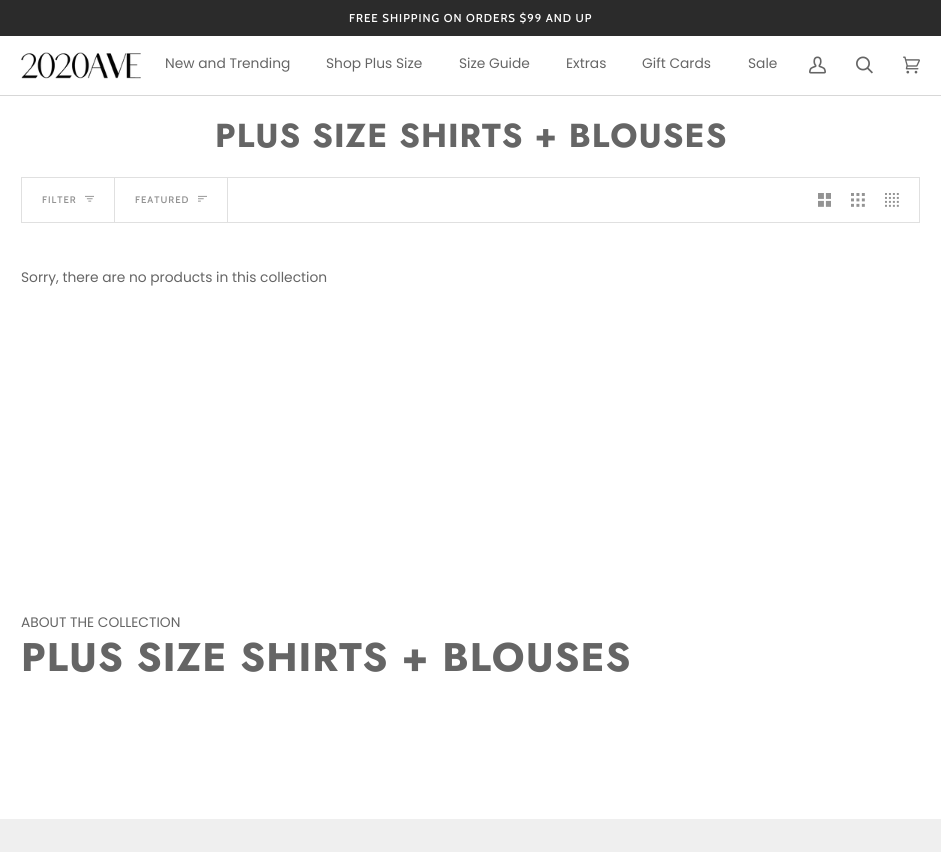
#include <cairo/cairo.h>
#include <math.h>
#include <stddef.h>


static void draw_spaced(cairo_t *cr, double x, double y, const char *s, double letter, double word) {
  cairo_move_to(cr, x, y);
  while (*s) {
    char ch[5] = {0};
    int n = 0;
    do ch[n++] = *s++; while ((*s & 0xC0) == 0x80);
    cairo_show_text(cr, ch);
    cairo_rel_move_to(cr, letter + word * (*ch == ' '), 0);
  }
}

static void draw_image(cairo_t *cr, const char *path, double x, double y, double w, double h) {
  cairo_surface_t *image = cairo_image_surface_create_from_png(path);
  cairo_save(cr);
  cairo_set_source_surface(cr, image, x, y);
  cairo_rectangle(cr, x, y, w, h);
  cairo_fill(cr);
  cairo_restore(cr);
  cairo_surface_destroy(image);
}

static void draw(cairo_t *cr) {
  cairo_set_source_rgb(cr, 1, 1, 1);
  cairo_paint(cr);
  cairo_set_source_rgb(cr, 43 / 255.0, 43 / 255.0, 43 / 255.0);
  cairo_rectangle(cr, 0, 0, 941, 36);
  cairo_fill(cr);
  cairo_set_source_rgb(cr, 215 / 255.0, 215 / 255.0, 215 / 255.0);
  cairo_rectangle(cr, 0, 95, 941, 1);
  cairo_fill(cr);
  draw_image(cr, "images/1.png", 21, 52, 120, 27);
  draw_image(cr, "images/2.png", 809, 56, 17, 18);
  draw_image(cr, "images/3.png", 856, 56, 17, 18);
  draw_image(cr, "images/4.png", 903, 56, 17, 18);
  cairo_rectangle(cr, 21.5, 177.5, 898, 45);
  cairo_set_source_rgb(cr, 224 / 255.0, 224 / 255.0, 224 / 255.0);
  cairo_set_line_width(cr, 1);
  cairo_stroke(cr);
  cairo_rectangle(cr, 114, 178, 1, 44);
  cairo_fill(cr);
  draw_image(cr, "images/5.png", 85, 195, 9, 7);
  cairo_rectangle(cr, 227, 178, 1, 44);
  cairo_fill(cr);
  draw_image(cr, "images/6.png", 198, 195, 9, 7);
  draw_image(cr, "images/7.png", 818, 193, 13, 14);
  draw_image(cr, "images/8.png", 851, 193, 14, 14);
  draw_image(cr, "images/9.png", 885, 193, 14, 14);
  cairo_set_source_rgb(cr, 239 / 255.0, 239 / 255.0, 239 / 255.0);
  cairo_rectangle(cr, 0, 819, 941, 33);
  cairo_fill(cr);
  cairo_select_font_face(cr, "Cabin Medium", CAIRO_FONT_SLANT_NORMAL, CAIRO_FONT_WEIGHT_NORMAL);
  cairo_set_font_size(cr, 11.4);
  cairo_set_source_rgb(cr, 1, 1, 1);
  draw_spaced(cr, 349, 22, "FREE SHIPPING ON ORDERS $99 AND UP", 1, 0);
  cairo_select_font_face(cr, "Poppins", CAIRO_FONT_SLANT_NORMAL, CAIRO_FONT_WEIGHT_NORMAL);
  cairo_set_font_size(cr, 13.8);
  cairo_set_source_rgb(cr, 101 / 255.0, 101 / 255.0, 101 / 255.0);
  cairo_move_to(cr, 165, 68);
  cairo_show_text(cr, "New and Trending");
  cairo_move_to(cr, 326, 68);
  cairo_show_text(cr, "Shop Plus Size");
  cairo_move_to(cr, 459, 68);
  cairo_show_text(cr, "Size Guide");
  cairo_move_to(cr, 566, 68);
  cairo_show_text(cr, "Extras");
  cairo_move_to(cr, 642, 68);
  cairo_show_text(cr, "Gift Cards");
  cairo_move_to(cr, 748, 68);
  cairo_show_text(cr, "Sale");
  cairo_select_font_face(cr, "Jost", CAIRO_FONT_SLANT_NORMAL, CAIRO_FONT_WEIGHT_BOLD);
  cairo_set_font_size(cr, 33.2);
  draw_spaced(cr, 215, 147, "PLUS SIZE SHIRTS + BLOUSES", 1, 0);
  cairo_select_font_face(cr, "Cabin SemiBold", CAIRO_FONT_SLANT_NORMAL, CAIRO_FONT_WEIGHT_NORMAL);
  cairo_set_font_size(cr, 9.5);
  cairo_set_source_rgb(cr, 147 / 255.0, 147 / 255.0, 147 / 255.0);
  draw_spaced(cr, 42, 203, "FILTER", 1, 0);
  draw_spaced(cr, 135, 203, "FEATURED", 1, 0);
  cairo_select_font_face(cr, "Poppins", CAIRO_FONT_SLANT_NORMAL, CAIRO_FONT_WEIGHT_NORMAL);
  cairo_set_font_size(cr, 13.8);
  cairo_set_source_rgb(cr, 101 / 255.0, 101 / 255.0, 101 / 255.0);
  cairo_move_to(cr, 21, 282);
  cairo_show_text(cr, "Sorry, there are no products in this collection");
  cairo_move_to(cr, 21, 627);
  cairo_show_text(cr, "ABOUT THE COLLECTION");
  cairo_select_font_face(cr, "Jost", CAIRO_FONT_SLANT_NORMAL, CAIRO_FONT_WEIGHT_BOLD);
  cairo_set_font_size(cr, 39.9);
  draw_spaced(cr, 21, 671, "PLUS SIZE SHIRTS + BLOUSES", 1, 0);
}

int main(void) {
  cairo_surface_t *surface = cairo_image_surface_create(CAIRO_FORMAT_RGB24, 941, 852);
  cairo_t *cr = cairo_create(surface);
  cairo_font_options_t *options = cairo_font_options_create();
  cairo_font_options_set_hint_metrics(options, CAIRO_HINT_METRICS_OFF);
  cairo_font_options_set_hint_style(options, CAIRO_HINT_STYLE_NONE);
  cairo_set_font_options(cr, options);
  cairo_set_miter_limit(cr, 4);
  draw(cr);
  cairo_surface_write_to_png(surface, "out.png");
  cairo_font_options_destroy(options);
  cairo_destroy(cr);
  cairo_surface_destroy(surface);
  return 0;
}
